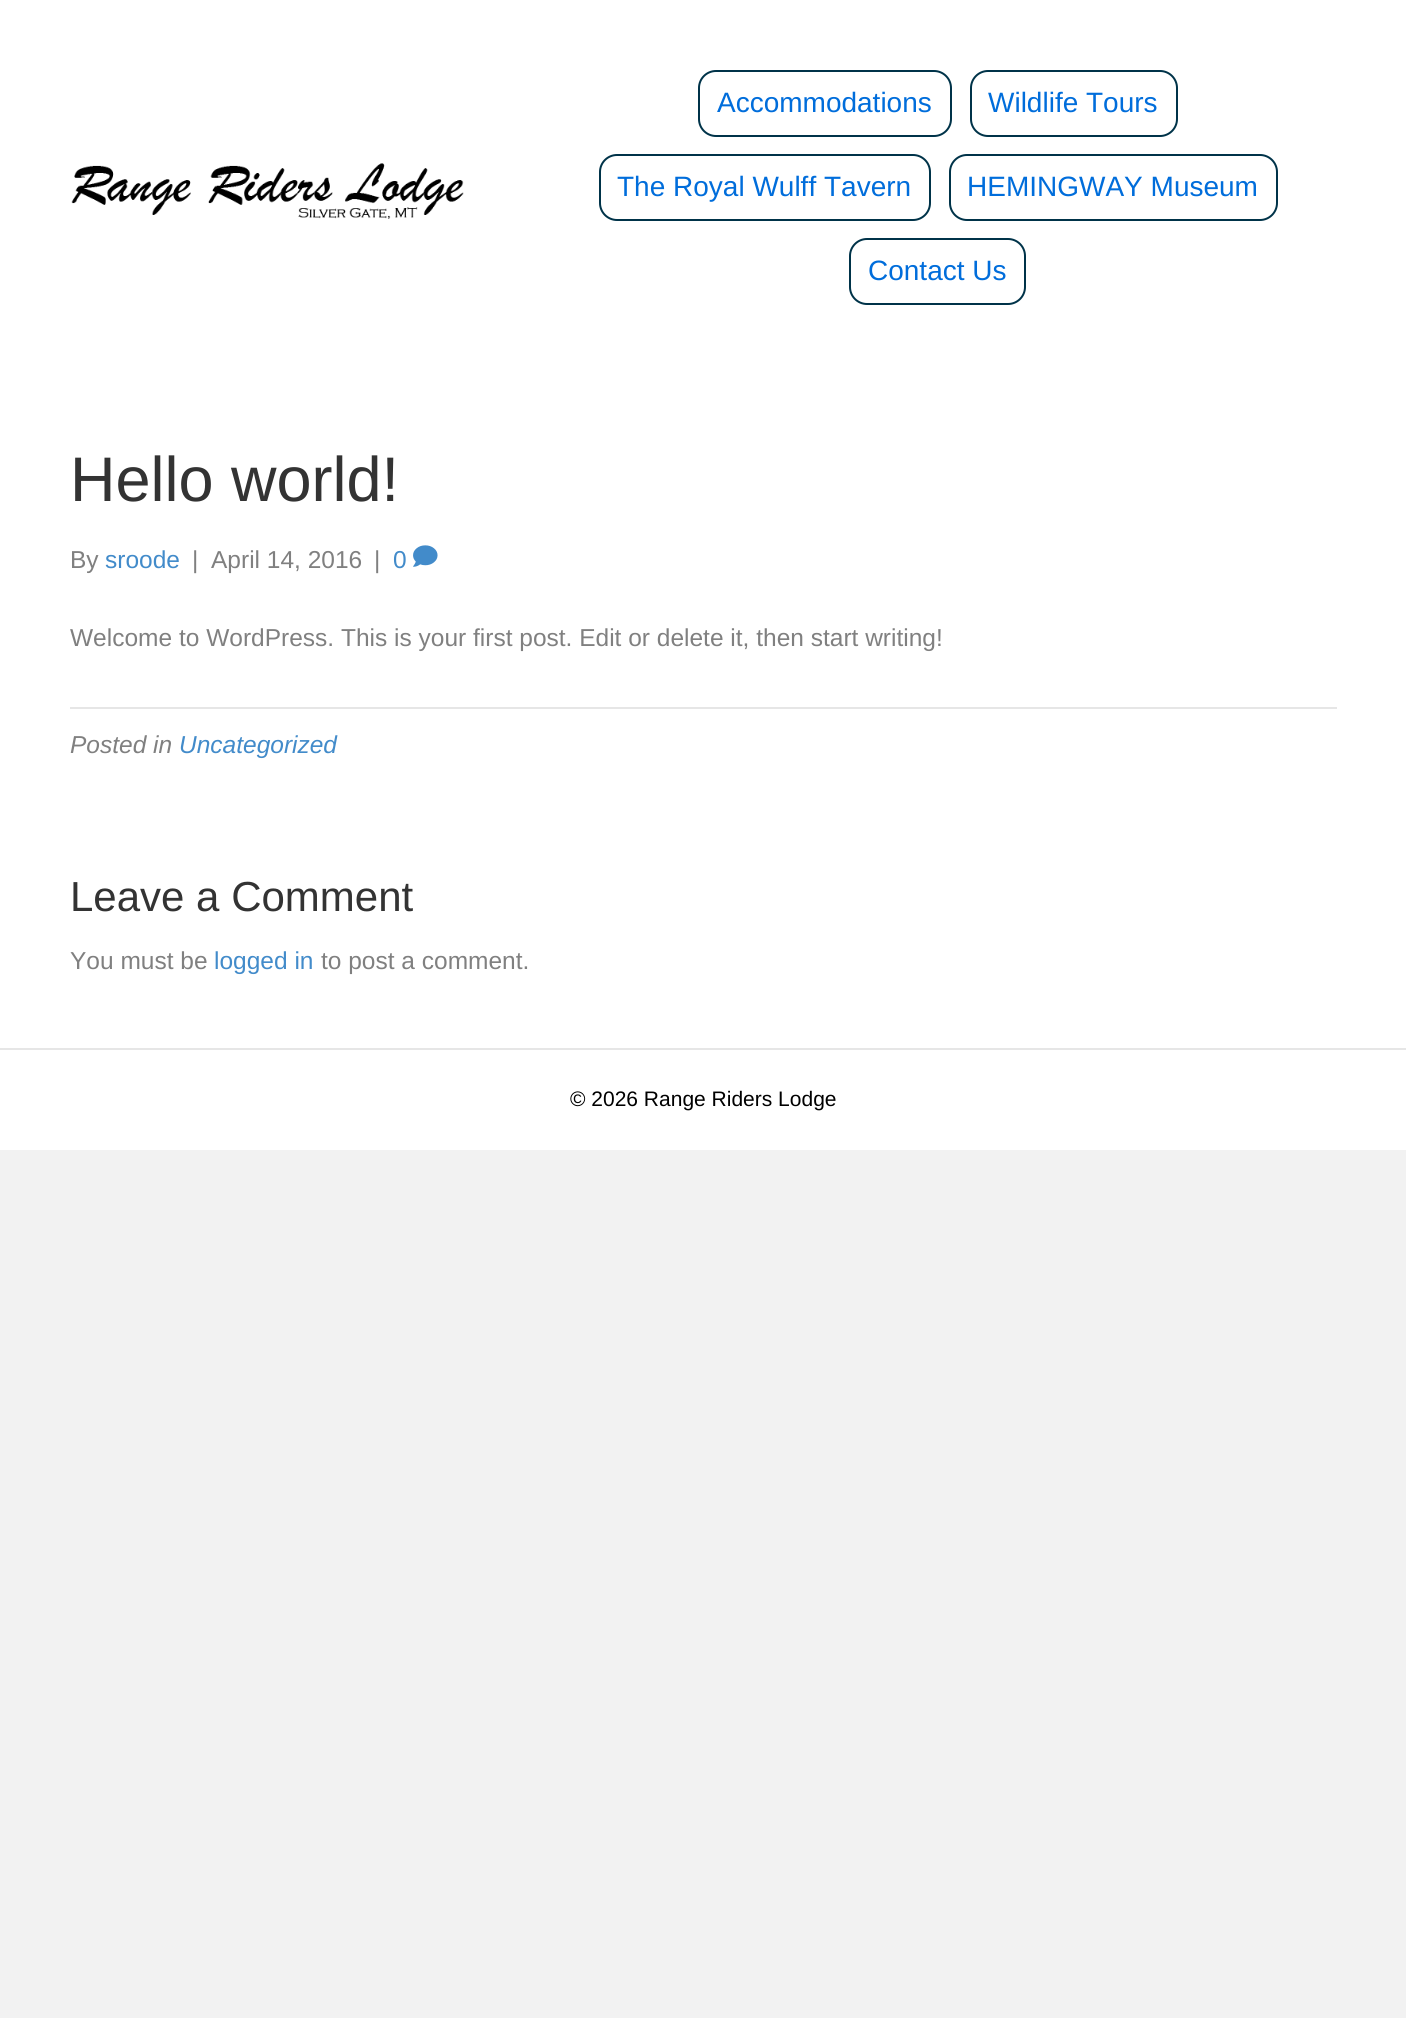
#include <cairo/cairo.h>
#include <math.h>
#include <stddef.h>


static void rounded_rect(cairo_t *cr, double x, double y, double w, double h, double r) {
  cairo_new_sub_path(cr);
  cairo_arc(cr, x + w - r, y + h - r, r, 0, M_PI / 2);
  cairo_arc(cr, x + r, y + h - r, r, M_PI / 2, M_PI);
  cairo_arc(cr, x + r, y + r, r, M_PI, 1.5 * M_PI);
  cairo_arc(cr, x + w - r, y + r, r, 1.5 * M_PI, 2 * M_PI);
  cairo_close_path(cr);
}

static void draw_image(cairo_t *cr, const char *path, double x, double y, double w, double h) {
  cairo_surface_t *image = cairo_image_surface_create_from_png(path);
  cairo_save(cr);
  cairo_set_source_surface(cr, image, x, y);
  cairo_rectangle(cr, x, y, w, h);
  cairo_fill(cr);
  cairo_restore(cr);
  cairo_surface_destroy(image);
}

static void draw(cairo_t *cr) {
  cairo_set_source_rgb(cr, 242 / 255.0, 242 / 255.0, 242 / 255.0);
  cairo_paint(cr);
  cairo_set_source_rgb(cr, 1, 1, 1);
  cairo_rectangle(cr, 0, 0, 1406, 1048);
  cairo_fill(cr);
  draw_image(cr, "images/1.png", 71, 163, 393, 56);
  rounded_rect(cr, 699, 71, 252, 65, 17);
  cairo_set_source_rgb(cr, 0, 51 / 255.0, 73 / 255.0);
  cairo_stroke(cr);
  rounded_rect(cr, 971, 71, 206, 65, 17);
  cairo_stroke(cr);
  rounded_rect(cr, 600, 155, 330, 65, 17);
  cairo_stroke(cr);
  rounded_rect(cr, 950, 155, 327, 65, 17);
  cairo_stroke(cr);
  rounded_rect(cr, 850, 239, 175, 65, 17);
  cairo_stroke(cr);
  draw_image(cr, "images/2.png", 413, 545, 25, 22);
  cairo_set_source_rgb(cr, 230 / 255.0, 230 / 255.0, 230 / 255.0);
  cairo_rectangle(cr, 70, 707, 1267, 2);
  cairo_fill(cr);
  cairo_set_source_rgb(cr, 1, 1, 1);
  cairo_rectangle(cr, 0, 1050, 1406, 100);
  cairo_fill(cr);
  cairo_set_source_rgb(cr, 230 / 255.0, 230 / 255.0, 230 / 255.0);
  cairo_rectangle(cr, 0, 1048, 1406, 2);
  cairo_fill(cr);
  cairo_select_font_face(cr, "Liberation Sans", CAIRO_FONT_SLANT_NORMAL, CAIRO_FONT_WEIGHT_NORMAL);
  cairo_set_font_size(cr, 28);
  cairo_set_source_rgb(cr, 0, 109 / 255.0, 219 / 255.0);
  cairo_move_to(cr, 717, 112);
  cairo_show_text(cr, "Accommodations");
  cairo_move_to(cr, 988, 112);
  cairo_show_text(cr, "Wildlife Tours");
  cairo_move_to(cr, 617, 196);
  cairo_show_text(cr, "The Royal Wulff Tavern");
  cairo_move_to(cr, 967, 196);
  cairo_show_text(cr, "HEMINGWAY Museum");
  cairo_move_to(cr, 868, 280);
  cairo_show_text(cr, "Contact Us");
  cairo_set_font_size(cr, 63);
  cairo_set_source_rgb(cr, 51 / 255.0, 51 / 255.0, 51 / 255.0);
  cairo_move_to(cr, 70, 501);
  cairo_show_text(cr, "Hello world!");
  cairo_set_font_size(cr, 24.5);
  cairo_set_source_rgb(cr, 128 / 255.0, 128 / 255.0, 128 / 255.0);
  cairo_move_to(cr, 70, 568);
  cairo_show_text(cr, "By");
  cairo_set_source_rgb(cr, 66 / 255.0, 139 / 255.0, 202 / 255.0);
  cairo_move_to(cr, 105, 568);
  cairo_show_text(cr, "sroode");
  cairo_set_source_rgb(cr, 128 / 255.0, 128 / 255.0, 128 / 255.0);
  cairo_move_to(cr, 192, 568);
  cairo_show_text(cr, "|");
  cairo_move_to(cr, 211, 568);
  cairo_show_text(cr, "April 14, 2016");
  cairo_move_to(cr, 374, 568);
  cairo_show_text(cr, "|");
  cairo_set_source_rgb(cr, 66 / 255.0, 139 / 255.0, 202 / 255.0);
  cairo_move_to(cr, 393, 568);
  cairo_show_text(cr, "0");
  cairo_set_source_rgb(cr, 128 / 255.0, 128 / 255.0, 128 / 255.0);
  cairo_move_to(cr, 70, 646);
  cairo_show_text(cr, "Welcome to WordPress. This is your first post. Edit or delete it, then start writing!");
  cairo_select_font_face(cr, "Liberation Sans", CAIRO_FONT_SLANT_ITALIC, CAIRO_FONT_WEIGHT_NORMAL);
  cairo_move_to(cr, 70, 753);
  cairo_show_text(cr, "Posted in");
  cairo_set_source_rgb(cr, 66 / 255.0, 139 / 255.0, 202 / 255.0);
  cairo_move_to(cr, 179, 753);
  cairo_show_text(cr, "Uncategorized");
  cairo_select_font_face(cr, "Liberation Sans", CAIRO_FONT_SLANT_NORMAL, CAIRO_FONT_WEIGHT_NORMAL);
  cairo_set_font_size(cr, 42);
  cairo_set_source_rgb(cr, 51 / 255.0, 51 / 255.0, 51 / 255.0);
  cairo_move_to(cr, 70, 911);
  cairo_show_text(cr, "Leave a Comment");
  cairo_set_font_size(cr, 24.5);
  cairo_set_source_rgb(cr, 128 / 255.0, 128 / 255.0, 128 / 255.0);
  cairo_move_to(cr, 70, 969);
  cairo_show_text(cr, "You must be");
  cairo_set_source_rgb(cr, 66 / 255.0, 139 / 255.0, 202 / 255.0);
  cairo_move_to(cr, 214, 969);
  cairo_show_text(cr, "logged in");
  cairo_set_source_rgb(cr, 128 / 255.0, 128 / 255.0, 128 / 255.0);
  cairo_move_to(cr, 321, 969);
  cairo_show_text(cr, "to post a comment.");
  cairo_set_font_size(cr, 21);
  cairo_set_source_rgb(cr, 0, 0, 0);
  cairo_move_to(cr, 570, 1106);
  cairo_show_text(cr, "© 2026 Range Riders Lodge");
}

int main(void) {
  cairo_surface_t *surface = cairo_image_surface_create(CAIRO_FORMAT_RGB24, 1406, 2018);
  cairo_t *cr = cairo_create(surface);
  cairo_font_options_t *options = cairo_font_options_create();
  cairo_font_options_set_hint_metrics(options, CAIRO_HINT_METRICS_OFF);
  cairo_font_options_set_hint_style(options, CAIRO_HINT_STYLE_NONE);
  cairo_set_font_options(cr, options);
  cairo_set_miter_limit(cr, 4);
  draw(cr);
  cairo_surface_write_to_png(surface, "out.png");
  cairo_font_options_destroy(options);
  cairo_destroy(cr);
  cairo_surface_destroy(surface);
  return 0;
}
